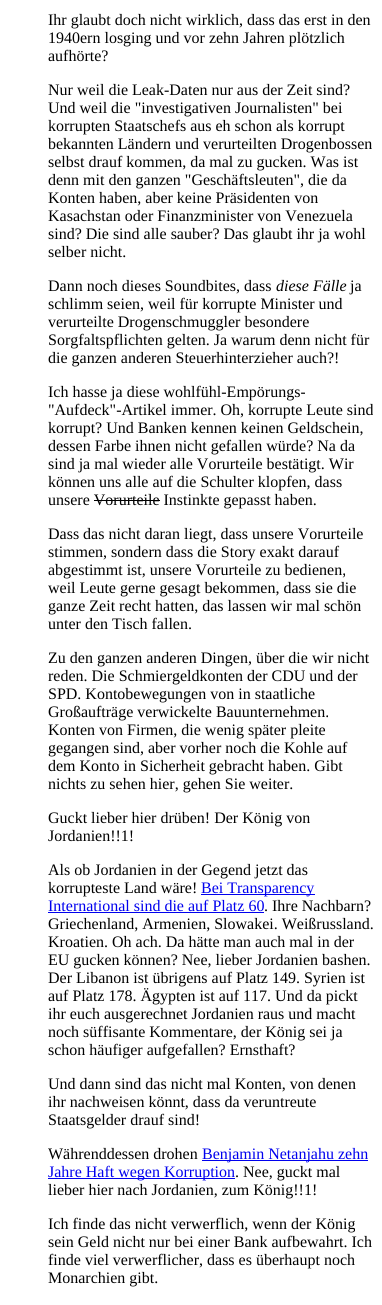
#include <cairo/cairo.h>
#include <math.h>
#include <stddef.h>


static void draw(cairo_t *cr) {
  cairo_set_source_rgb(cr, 1, 1, 1);
  cairo_paint(cr);
  cairo_set_source_rgb(cr, 0, 0, 0);
  cairo_rectangle(cr, 94, 500, 66, 1);
  cairo_fill(cr);
  cairo_set_source_rgb(cr, 0, 0, 238 / 255.0);
  cairo_rectangle(cr, 201, 894, 114, 1);
  cairo_fill(cr);
  cairo_rectangle(cr, 48, 912, 216, 1);
  cairo_fill(cr);
  cairo_rectangle(cr, 202, 1160, 166, 1);
  cairo_fill(cr);
  cairo_rectangle(cr, 48, 1178, 187, 1);
  cairo_fill(cr);
  cairo_select_font_face(cr, "Liberation Serif", CAIRO_FONT_SLANT_NORMAL, CAIRO_FONT_WEIGHT_NORMAL);
  cairo_set_font_size(cr, 16);
  cairo_set_source_rgb(cr, 0, 0, 0);
  cairo_move_to(cr, 48, 25);
  cairo_show_text(cr, "Ihr glaubt doch nicht wirklich, dass das erst in den");
  cairo_move_to(cr, 48, 43);
  cairo_show_text(cr, "1940ern losging und vor zehn Jahren plötzlich");
  cairo_move_to(cr, 48, 61);
  cairo_show_text(cr, "aufhörte?");
  cairo_move_to(cr, 48, 95);
  cairo_show_text(cr, "Nur weil die Leak-Daten nur aus der Zeit sind?");
  cairo_move_to(cr, 48, 113);
  cairo_show_text(cr, "Und weil die \"investigativen Journalisten\" bei");
  cairo_move_to(cr, 48, 131);
  cairo_show_text(cr, "korrupten Staatschefs aus eh schon als korrupt");
  cairo_move_to(cr, 48, 149);
  cairo_show_text(cr, "bekannten Ländern und verurteilten Drogenbossen");
  cairo_move_to(cr, 48, 167);
  cairo_show_text(cr, "selbst drauf kommen, da mal zu gucken. Was ist");
  cairo_move_to(cr, 48, 185);
  cairo_show_text(cr, "denn mit den ganzen \"Geschäftsleuten\", die da");
  cairo_move_to(cr, 48, 203);
  cairo_show_text(cr, "Konten haben, aber keine Präsidenten von");
  cairo_move_to(cr, 48, 221);
  cairo_show_text(cr, "Kasachstan oder Finanzminister von Venezuela");
  cairo_move_to(cr, 48, 239);
  cairo_show_text(cr, "sind? Die sind alle sauber? Das glaubt ihr ja wohl");
  cairo_move_to(cr, 48, 257);
  cairo_show_text(cr, "selber nicht.");
  cairo_move_to(cr, 48, 291);
  cairo_show_text(cr, "Dann noch dieses Soundbites, dass");
  cairo_select_font_face(cr, "Liberation Serif", CAIRO_FONT_SLANT_ITALIC, CAIRO_FONT_WEIGHT_NORMAL);
  cairo_move_to(cr, 276, 291);
  cairo_show_text(cr, "diese Fälle");
  cairo_select_font_face(cr, "Liberation Serif", CAIRO_FONT_SLANT_NORMAL, CAIRO_FONT_WEIGHT_NORMAL);
  cairo_move_to(cr, 350, 291);
  cairo_show_text(cr, "ja");
  cairo_move_to(cr, 48, 309);
  cairo_show_text(cr, "schlimm seien, weil für korrupte Minister und");
  cairo_move_to(cr, 48, 327);
  cairo_show_text(cr, "verurteilte Drogenschmuggler besondere");
  cairo_move_to(cr, 48, 345);
  cairo_show_text(cr, "Sorgfaltspflichten gelten. Ja warum denn nicht für");
  cairo_move_to(cr, 48, 363);
  cairo_show_text(cr, "die ganzen anderen Steuerhinterzieher auch?!");
  cairo_move_to(cr, 48, 397);
  cairo_show_text(cr, "Ich hasse ja diese wohlfühl-Empörungs-");
  cairo_move_to(cr, 48, 415);
  cairo_show_text(cr, "\"Aufdeck\"-Artikel immer. Oh, korrupte Leute sind");
  cairo_move_to(cr, 48, 433);
  cairo_show_text(cr, "korrupt? Und Banken kennen keinen Geldschein,");
  cairo_move_to(cr, 48, 451);
  cairo_show_text(cr, "dessen Farbe ihnen nicht gefallen würde? Na da");
  cairo_move_to(cr, 48, 469);
  cairo_show_text(cr, "sind ja mal wieder alle Vorurteile bestätigt. Wir");
  cairo_move_to(cr, 48, 487);
  cairo_show_text(cr, "können uns alle auf die Schulter klopfen, dass");
  cairo_move_to(cr, 48, 505);
  cairo_show_text(cr, "unsere Vorurteile Instinkte gepasst haben.");
  cairo_move_to(cr, 48, 539);
  cairo_show_text(cr, "Dass das nicht daran liegt, dass unsere Vorurteile");
  cairo_move_to(cr, 48, 557);
  cairo_show_text(cr, "stimmen, sondern dass die Story exakt darauf");
  cairo_move_to(cr, 48, 575);
  cairo_show_text(cr, "abgestimmt ist, unsere Vorurteile zu bedienen,");
  cairo_move_to(cr, 48, 593);
  cairo_show_text(cr, "weil Leute gerne gesagt bekommen, dass sie die");
  cairo_move_to(cr, 48, 611);
  cairo_show_text(cr, "ganze Zeit recht hatten, das lassen wir mal schön");
  cairo_move_to(cr, 48, 629);
  cairo_show_text(cr, "unter den Tisch fallen.");
  cairo_move_to(cr, 48, 663);
  cairo_show_text(cr, "Zu den ganzen anderen Dingen, über die wir nicht");
  cairo_move_to(cr, 48, 681);
  cairo_show_text(cr, "reden. Die Schmiergeldkonten der CDU und der");
  cairo_move_to(cr, 48, 699);
  cairo_show_text(cr, "SPD. Kontobewegungen von in staatliche");
  cairo_move_to(cr, 48, 717);
  cairo_show_text(cr, "Großaufträge verwickelte Bauunternehmen.");
  cairo_move_to(cr, 48, 735);
  cairo_show_text(cr, "Konten von Firmen, die wenig später pleite");
  cairo_move_to(cr, 48, 753);
  cairo_show_text(cr, "gegangen sind, aber vorher noch die Kohle auf");
  cairo_move_to(cr, 48, 771);
  cairo_show_text(cr, "dem Konto in Sicherheit gebracht haben. Gibt");
  cairo_move_to(cr, 48, 789);
  cairo_show_text(cr, "nichts zu sehen hier, gehen Sie weiter.");
  cairo_move_to(cr, 48, 823);
  cairo_show_text(cr, "Guckt lieber hier drüben! Der König von");
  cairo_move_to(cr, 48, 841);
  cairo_show_text(cr, "Jordanien!!1!");
  cairo_move_to(cr, 48, 875);
  cairo_show_text(cr, "Als ob Jordanien in der Gegend jetzt das");
  cairo_move_to(cr, 48, 893);
  cairo_show_text(cr, "korrupteste Land wäre!");
  cairo_set_source_rgb(cr, 0, 0, 238 / 255.0);
  cairo_move_to(cr, 201, 893);
  cairo_show_text(cr, "Bei Transparency");
  cairo_move_to(cr, 48, 911);
  cairo_show_text(cr, "International sind die auf Platz 60");
  cairo_set_source_rgb(cr, 0, 0, 0);
  cairo_move_to(cr, 264, 911);
  cairo_show_text(cr, ". Ihre Nachbarn?");
  cairo_move_to(cr, 48, 929);
  cairo_show_text(cr, "Griechenland, Armenien, Slowakei. Weißrussland.");
  cairo_move_to(cr, 48, 947);
  cairo_show_text(cr, "Kroatien. Oh ach. Da hätte man auch mal in der");
  cairo_move_to(cr, 48, 965);
  cairo_show_text(cr, "EU gucken können? Nee, lieber Jordanien bashen.");
  cairo_move_to(cr, 48, 983);
  cairo_show_text(cr, "Der Libanon ist übrigens auf Platz 149. Syrien ist");
  cairo_move_to(cr, 48, 1001);
  cairo_show_text(cr, "auf Platz 178. Ägypten ist auf 117. Und da pickt");
  cairo_move_to(cr, 48, 1019);
  cairo_show_text(cr, "ihr euch ausgerechnet Jordanien raus und macht");
  cairo_move_to(cr, 48, 1037);
  cairo_show_text(cr, "noch süffisante Kommentare, der König sei ja");
  cairo_move_to(cr, 48, 1055);
  cairo_show_text(cr, "schon häufiger aufgefallen? Ernsthaft?");
  cairo_move_to(cr, 48, 1089);
  cairo_show_text(cr, "Und dann sind das nicht mal Konten, von denen");
  cairo_move_to(cr, 48, 1107);
  cairo_show_text(cr, "ihr nachweisen könnt, dass da veruntreute");
  cairo_move_to(cr, 48, 1125);
  cairo_show_text(cr, "Staatsgelder drauf sind!");
  cairo_move_to(cr, 48, 1159);
  cairo_show_text(cr, "Währenddessen drohen");
  cairo_set_source_rgb(cr, 0, 0, 238 / 255.0);
  cairo_move_to(cr, 202, 1159);
  cairo_show_text(cr, "Benjamin Netanjahu zehn");
  cairo_move_to(cr, 48, 1177);
  cairo_show_text(cr, "Jahre Haft wegen Korruption");
  cairo_set_source_rgb(cr, 0, 0, 0);
  cairo_move_to(cr, 235, 1177);
  cairo_show_text(cr, ". Nee, guckt mal");
  cairo_move_to(cr, 48, 1195);
  cairo_show_text(cr, "lieber hier nach Jordanien, zum König!!1!");
  cairo_move_to(cr, 48, 1229);
  cairo_show_text(cr, "Ich finde das nicht verwerflich, wenn der König");
  cairo_move_to(cr, 48, 1247);
  cairo_show_text(cr, "sein Geld nicht nur bei einer Bank aufbewahrt. Ich");
  cairo_move_to(cr, 48, 1265);
  cairo_show_text(cr, "finde viel verwerflicher, dass es überhaupt noch");
  cairo_move_to(cr, 48, 1283);
  cairo_show_text(cr, "Monarchien gibt.");
}

int main(void) {
  cairo_surface_t *surface = cairo_image_surface_create(CAIRO_FORMAT_RGB24, 382, 1305);
  cairo_t *cr = cairo_create(surface);
  cairo_font_options_t *options = cairo_font_options_create();
  cairo_font_options_set_hint_metrics(options, CAIRO_HINT_METRICS_OFF);
  cairo_font_options_set_hint_style(options, CAIRO_HINT_STYLE_NONE);
  cairo_set_font_options(cr, options);
  cairo_set_miter_limit(cr, 4);
  draw(cr);
  cairo_surface_write_to_png(surface, "out.png");
  cairo_font_options_destroy(options);
  cairo_destroy(cr);
  cairo_surface_destroy(surface);
  return 0;
}
